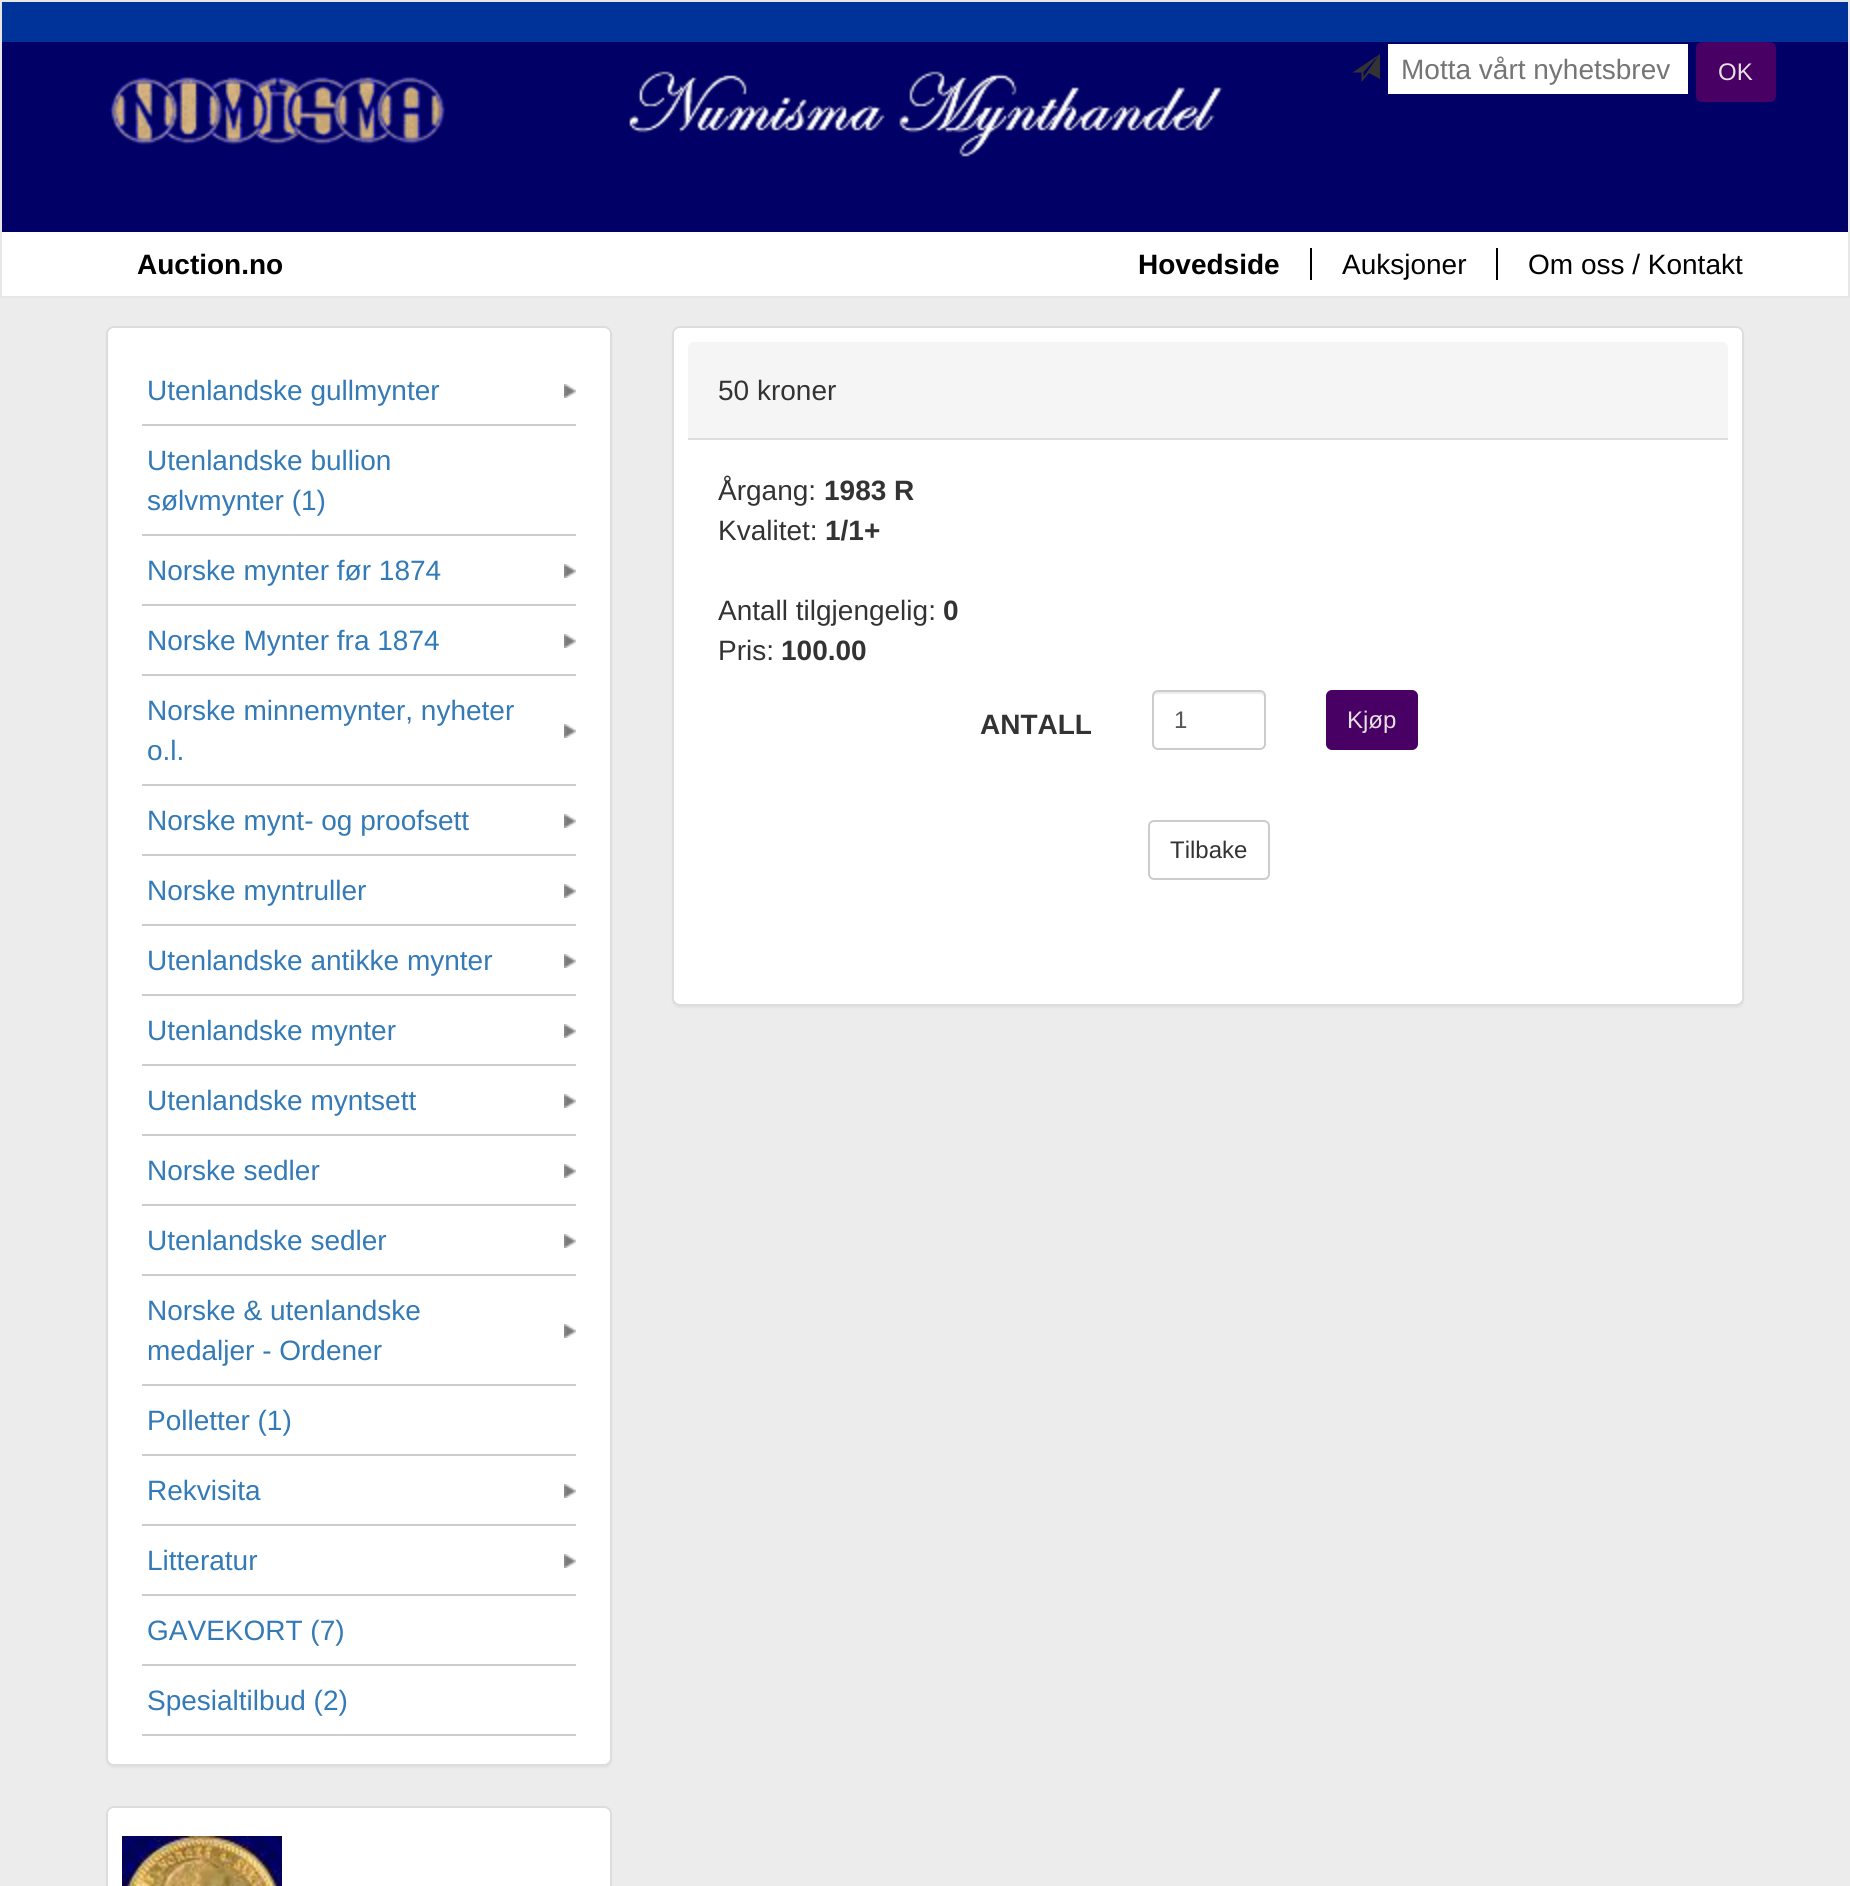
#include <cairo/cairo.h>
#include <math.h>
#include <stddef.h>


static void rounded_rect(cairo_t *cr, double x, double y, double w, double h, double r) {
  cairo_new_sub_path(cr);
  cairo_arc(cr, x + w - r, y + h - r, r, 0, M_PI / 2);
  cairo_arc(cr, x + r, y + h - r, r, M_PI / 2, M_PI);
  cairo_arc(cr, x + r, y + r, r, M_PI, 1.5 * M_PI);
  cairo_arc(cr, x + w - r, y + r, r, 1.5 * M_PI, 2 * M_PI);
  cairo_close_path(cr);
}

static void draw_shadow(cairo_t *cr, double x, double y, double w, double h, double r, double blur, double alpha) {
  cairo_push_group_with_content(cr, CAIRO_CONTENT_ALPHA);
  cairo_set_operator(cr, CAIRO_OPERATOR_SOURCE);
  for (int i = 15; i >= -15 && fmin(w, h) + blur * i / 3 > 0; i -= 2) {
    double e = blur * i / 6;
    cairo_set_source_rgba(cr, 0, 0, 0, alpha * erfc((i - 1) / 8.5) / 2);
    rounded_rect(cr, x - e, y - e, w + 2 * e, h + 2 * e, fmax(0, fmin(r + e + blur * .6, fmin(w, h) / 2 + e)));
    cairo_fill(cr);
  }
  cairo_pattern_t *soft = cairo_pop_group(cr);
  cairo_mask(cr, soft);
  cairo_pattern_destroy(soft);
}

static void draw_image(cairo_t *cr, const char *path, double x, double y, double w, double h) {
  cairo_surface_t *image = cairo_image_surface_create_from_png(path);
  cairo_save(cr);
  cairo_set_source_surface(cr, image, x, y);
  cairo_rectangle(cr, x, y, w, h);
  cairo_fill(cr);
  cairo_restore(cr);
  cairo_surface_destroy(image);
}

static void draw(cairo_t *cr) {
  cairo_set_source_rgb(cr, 236 / 255.0, 236 / 255.0, 236 / 255.0);
  cairo_paint(cr);
  cairo_rectangle(cr, 1, 1, 1848, 296);
  cairo_set_source_rgb(cr, 231 / 255.0, 231 / 255.0, 231 / 255.0);
  cairo_stroke(cr);
  cairo_set_source_rgb(cr, 1 / 255.0, 0, 102 / 255.0);
  cairo_rectangle(cr, 2, 42, 1846, 190);
  cairo_fill(cr);
  cairo_set_source_rgb(cr, 0, 51 / 255.0, 153 / 255.0);
  cairo_rectangle(cr, 2, 2, 1846, 40);
  cairo_fill(cr);
  draw_image(cr, "images/1.png", 108, 76, 338, 70);
  draw_image(cr, "images/2.png", 629, 71, 594, 86);
  cairo_set_source_rgb(cr, 51 / 255.0, 51 / 255.0, 51 / 255.0);
  cairo_new_path(cr);
  cairo_move_to(cr, 1352.5, 72.5);
  cairo_line_to(cr, 1380, 54);
  cairo_line_to(cr, 1380, 79);
  cairo_line_to(cr, 1369, 73);
  cairo_line_to(cr, 1361.5, 82);
  cairo_line_to(cr, 1361.5, 72.5);
  cairo_close_path(cr);
  cairo_move_to(cr, 1363.5, 77);
  cairo_line_to(cr, 1379, 55);
  cairo_line_to(cr, 1363.5, 72);
  cairo_close_path(cr);
  cairo_fill(cr);
  cairo_set_source_rgb(cr, 1, 1, 1);
  cairo_rectangle(cr, 1388, 44, 300, 50);
  cairo_fill(cr);
  cairo_set_source_rgb(cr, 72 / 255.0, 0, 100 / 255.0);
  rounded_rect(cr, 1696, 42, 80, 60, 6);
  cairo_fill(cr);
  cairo_set_source_rgb(cr, 1, 1, 1);
  cairo_rectangle(cr, 2, 232, 1846, 64);
  cairo_fill(cr);
  cairo_set_source_rgb(cr, 0, 0, 0);
  cairo_rectangle(cr, 1310, 248, 2, 32);
  cairo_fill(cr);
  cairo_rectangle(cr, 1496, 248, 2, 32);
  cairo_fill(cr);
  cairo_set_source_rgb(cr, 0, 0, 0);
  draw_shadow(cr, 106, 328, 506, 1440, 8, 1, 0.05);
  cairo_set_source_rgb(cr, 1, 1, 1);
  rounded_rect(cr, 107, 327, 504, 1438, 7);
  cairo_fill_preserve(cr);
  cairo_set_source_rgb(cr, 221 / 255.0, 221 / 255.0, 221 / 255.0);
  cairo_stroke(cr);
  cairo_set_source_rgb(cr, 204 / 255.0, 204 / 255.0, 204 / 255.0);
  cairo_rectangle(cr, 142, 424, 434, 2);
  cairo_fill(cr);
  draw_image(cr, "images/3.png", 564, 384, 12, 14);
  cairo_rectangle(cr, 142, 534, 434, 2);
  cairo_fill(cr);
  cairo_rectangle(cr, 142, 604, 434, 2);
  cairo_fill(cr);
  draw_image(cr, "images/3.png", 564, 564, 12, 14);
  cairo_rectangle(cr, 142, 674, 434, 2);
  cairo_fill(cr);
  draw_image(cr, "images/3.png", 564, 634, 12, 14);
  cairo_rectangle(cr, 142, 784, 434, 2);
  cairo_fill(cr);
  draw_image(cr, "images/3.png", 564, 724, 12, 14);
  cairo_rectangle(cr, 142, 854, 434, 2);
  cairo_fill(cr);
  draw_image(cr, "images/3.png", 564, 814, 12, 14);
  cairo_rectangle(cr, 142, 924, 434, 2);
  cairo_fill(cr);
  draw_image(cr, "images/3.png", 564, 884, 12, 14);
  cairo_rectangle(cr, 142, 994, 434, 2);
  cairo_fill(cr);
  draw_image(cr, "images/3.png", 564, 954, 12, 14);
  cairo_rectangle(cr, 142, 1064, 434, 2);
  cairo_fill(cr);
  draw_image(cr, "images/3.png", 564, 1024, 12, 14);
  cairo_rectangle(cr, 142, 1134, 434, 2);
  cairo_fill(cr);
  draw_image(cr, "images/3.png", 564, 1094, 12, 14);
  cairo_rectangle(cr, 142, 1204, 434, 2);
  cairo_fill(cr);
  draw_image(cr, "images/3.png", 564, 1164, 12, 14);
  cairo_rectangle(cr, 142, 1274, 434, 2);
  cairo_fill(cr);
  draw_image(cr, "images/3.png", 564, 1234, 12, 14);
  cairo_rectangle(cr, 142, 1384, 434, 2);
  cairo_fill(cr);
  draw_image(cr, "images/3.png", 564, 1324, 12, 14);
  cairo_rectangle(cr, 142, 1454, 434, 2);
  cairo_fill(cr);
  cairo_rectangle(cr, 142, 1524, 434, 2);
  cairo_fill(cr);
  draw_image(cr, "images/3.png", 564, 1484, 12, 14);
  cairo_rectangle(cr, 142, 1594, 434, 2);
  cairo_fill(cr);
  draw_image(cr, "images/3.png", 564, 1554, 12, 14);
  cairo_rectangle(cr, 142, 1664, 434, 2);
  cairo_fill(cr);
  cairo_rectangle(cr, 142, 1734, 434, 2);
  cairo_fill(cr);
  cairo_set_source_rgb(cr, 1, 1, 1);
  rounded_rect(cr, 107, 1807, 504, 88, 7);
  cairo_fill_preserve(cr);
  cairo_set_source_rgb(cr, 221 / 255.0, 221 / 255.0, 221 / 255.0);
  cairo_stroke(cr);
  draw_image(cr, "images/4.png", 122, 1836, 160, 50);
  cairo_set_source_rgb(cr, 0, 0, 0);
  draw_shadow(cr, 672, 328, 1072, 680, 8, 1, 0.05);
  cairo_set_source_rgb(cr, 1, 1, 1);
  rounded_rect(cr, 673, 327, 1070, 678, 7);
  cairo_fill_preserve(cr);
  cairo_set_source_rgb(cr, 221 / 255.0, 221 / 255.0, 221 / 255.0);
  cairo_stroke(cr);
  cairo_set_source_rgb(cr, 245 / 255.0, 245 / 255.0, 245 / 255.0);
  cairo_new_path(cr);
  cairo_move_to(cr, 694, 342);
  cairo_line_to(cr, 1722, 342);
  cairo_curve_to(cr, 1725.5, 342, 1728, 344.5, 1728, 348);
  cairo_line_to(cr, 1728, 440);
  cairo_line_to(cr, 688, 440);
  cairo_line_to(cr, 688, 348);
  cairo_curve_to(cr, 688, 344.5, 690.5, 342, 694, 342);
  cairo_close_path(cr);
  cairo_fill(cr);
  cairo_set_source_rgb(cr, 221 / 255.0, 221 / 255.0, 221 / 255.0);
  cairo_rectangle(cr, 688, 438, 1040, 2);
  cairo_fill(cr);
  cairo_set_source_rgb(cr, 236 / 255.0, 236 / 255.0, 236 / 255.0);
  cairo_new_path(cr);
  cairo_move_to(cr, 1158, 694);
  cairo_line_to(cr, 1260, 694);
  cairo_curve_to(cr, 1262, 694, 1264, 696, 1264, 698);
  cairo_line_to(cr, 1264, 696);
  cairo_curve_to(cr, 1264, 694, 1262, 692, 1260, 692);
  cairo_line_to(cr, 1158, 692);
  cairo_curve_to(cr, 1156, 692, 1154, 694, 1154, 696);
  cairo_line_to(cr, 1154, 698);
  cairo_curve_to(cr, 1154, 696, 1156, 694, 1158, 694);
  cairo_close_path(cr);
  cairo_fill(cr);
  rounded_rect(cr, 1153, 691, 112, 58, 5);
  cairo_set_source_rgb(cr, 204 / 255.0, 204 / 255.0, 204 / 255.0);
  cairo_stroke(cr);
  cairo_set_source_rgb(cr, 72 / 255.0, 0, 100 / 255.0);
  rounded_rect(cr, 1326, 690, 92, 60, 6);
  cairo_fill(cr);
  rounded_rect(cr, 1149, 821, 120, 58, 5);
  cairo_set_source_rgb(cr, 204 / 255.0, 204 / 255.0, 204 / 255.0);
  cairo_stroke(cr);
  cairo_select_font_face(cr, "Liberation Sans", CAIRO_FONT_SLANT_NORMAL, CAIRO_FONT_WEIGHT_NORMAL);
  cairo_set_font_size(cr, 28);
  cairo_set_source_rgb(cr, 117 / 255.0, 117 / 255.0, 117 / 255.0);
  cairo_move_to(cr, 1401, 79);
  cairo_show_text(cr, "Motta vårt nyhetsbrev");
  cairo_set_font_size(cr, 24);
  cairo_set_source_rgb(cr, 229 / 255.0, 225 / 255.0, 225 / 255.0);
  cairo_move_to(cr, 1718, 80);
  cairo_show_text(cr, "OK");
  cairo_select_font_face(cr, "Liberation Sans", CAIRO_FONT_SLANT_NORMAL, CAIRO_FONT_WEIGHT_BOLD);
  cairo_set_font_size(cr, 28);
  cairo_set_source_rgb(cr, 0, 0, 0);
  cairo_move_to(cr, 137, 274);
  cairo_show_text(cr, "Auction.no");
  cairo_move_to(cr, 1138, 274);
  cairo_show_text(cr, "Hovedside");
  cairo_select_font_face(cr, "Liberation Sans", CAIRO_FONT_SLANT_NORMAL, CAIRO_FONT_WEIGHT_NORMAL);
  cairo_move_to(cr, 1342, 274);
  cairo_show_text(cr, "Auksjoner");
  cairo_move_to(cr, 1528, 274);
  cairo_show_text(cr, "Om oss / Kontakt");
  cairo_set_source_rgb(cr, 51 / 255.0, 122 / 255.0, 183 / 255.0);
  cairo_move_to(cr, 147, 400);
  cairo_show_text(cr, "Utenlandske gullmynter");
  cairo_move_to(cr, 147, 470);
  cairo_show_text(cr, "Utenlandske bullion");
  cairo_move_to(cr, 147, 510);
  cairo_show_text(cr, "sølvmynter (1)");
  cairo_move_to(cr, 147, 580);
  cairo_show_text(cr, "Norske mynter før 1874");
  cairo_move_to(cr, 147, 650);
  cairo_show_text(cr, "Norske Mynter fra 1874");
  cairo_move_to(cr, 147, 720);
  cairo_show_text(cr, "Norske minnemynter, nyheter");
  cairo_move_to(cr, 147, 760);
  cairo_show_text(cr, "o.l.");
  cairo_move_to(cr, 147, 830);
  cairo_show_text(cr, "Norske mynt- og proofsett");
  cairo_move_to(cr, 147, 900);
  cairo_show_text(cr, "Norske myntruller");
  cairo_move_to(cr, 147, 970);
  cairo_show_text(cr, "Utenlandske antikke mynter");
  cairo_move_to(cr, 147, 1040);
  cairo_show_text(cr, "Utenlandske mynter");
  cairo_move_to(cr, 147, 1110);
  cairo_show_text(cr, "Utenlandske myntsett");
  cairo_move_to(cr, 147, 1180);
  cairo_show_text(cr, "Norske sedler");
  cairo_move_to(cr, 147, 1250);
  cairo_show_text(cr, "Utenlandske sedler");
  cairo_move_to(cr, 147, 1320);
  cairo_show_text(cr, "Norske & utenlandske");
  cairo_move_to(cr, 147, 1360);
  cairo_show_text(cr, "medaljer - Ordener");
  cairo_move_to(cr, 147, 1430);
  cairo_show_text(cr, "Polletter (1)");
  cairo_move_to(cr, 147, 1500);
  cairo_show_text(cr, "Rekvisita");
  cairo_move_to(cr, 147, 1570);
  cairo_show_text(cr, "Litteratur");
  cairo_move_to(cr, 147, 1640);
  cairo_show_text(cr, "GAVEKORT (7)");
  cairo_move_to(cr, 147, 1710);
  cairo_show_text(cr, "Spesialtilbud (2)");
  cairo_set_source_rgb(cr, 51 / 255.0, 51 / 255.0, 51 / 255.0);
  cairo_move_to(cr, 718, 400);
  cairo_show_text(cr, "50 kroner");
  cairo_move_to(cr, 718, 500);
  cairo_show_text(cr, "Årgang:");
  cairo_select_font_face(cr, "Liberation Sans", CAIRO_FONT_SLANT_NORMAL, CAIRO_FONT_WEIGHT_BOLD);
  cairo_move_to(cr, 824, 500);
  cairo_show_text(cr, "1983 R");
  cairo_select_font_face(cr, "Liberation Sans", CAIRO_FONT_SLANT_NORMAL, CAIRO_FONT_WEIGHT_NORMAL);
  cairo_move_to(cr, 718, 540);
  cairo_show_text(cr, "Kvalitet:");
  cairo_select_font_face(cr, "Liberation Sans", CAIRO_FONT_SLANT_NORMAL, CAIRO_FONT_WEIGHT_BOLD);
  cairo_move_to(cr, 825, 540);
  cairo_show_text(cr, "1/1+");
  cairo_select_font_face(cr, "Liberation Sans", CAIRO_FONT_SLANT_NORMAL, CAIRO_FONT_WEIGHT_NORMAL);
  cairo_move_to(cr, 718, 620);
  cairo_show_text(cr, "Antall tilgjengelig:");
  cairo_select_font_face(cr, "Liberation Sans", CAIRO_FONT_SLANT_NORMAL, CAIRO_FONT_WEIGHT_BOLD);
  cairo_move_to(cr, 943, 620);
  cairo_show_text(cr, "0");
  cairo_select_font_face(cr, "Liberation Sans", CAIRO_FONT_SLANT_NORMAL, CAIRO_FONT_WEIGHT_NORMAL);
  cairo_move_to(cr, 718, 660);
  cairo_show_text(cr, "Pris:");
  cairo_select_font_face(cr, "Liberation Sans", CAIRO_FONT_SLANT_NORMAL, CAIRO_FONT_WEIGHT_BOLD);
  cairo_move_to(cr, 781, 660);
  cairo_show_text(cr, "100.00");
  cairo_move_to(cr, 980, 734);
  cairo_show_text(cr, "ANTALL");
  cairo_select_font_face(cr, "Liberation Sans", CAIRO_FONT_SLANT_NORMAL, CAIRO_FONT_WEIGHT_NORMAL);
  cairo_set_font_size(cr, 24);
  cairo_set_source_rgb(cr, 85 / 255.0, 85 / 255.0, 85 / 255.0);
  cairo_move_to(cr, 1174, 728);
  cairo_show_text(cr, "1");
  cairo_set_source_rgb(cr, 229 / 255.0, 225 / 255.0, 225 / 255.0);
  cairo_move_to(cr, 1347, 728);
  cairo_show_text(cr, "Kjøp");
  cairo_set_source_rgb(cr, 51 / 255.0, 51 / 255.0, 51 / 255.0);
  cairo_move_to(cr, 1170, 858);
  cairo_show_text(cr, "Tilbake");
}

int main(void) {
  cairo_surface_t *surface = cairo_image_surface_create(CAIRO_FORMAT_RGB24, 1850, 1886);
  cairo_t *cr = cairo_create(surface);
  cairo_font_options_t *options = cairo_font_options_create();
  cairo_font_options_set_hint_metrics(options, CAIRO_HINT_METRICS_OFF);
  cairo_font_options_set_hint_style(options, CAIRO_HINT_STYLE_NONE);
  cairo_set_font_options(cr, options);
  cairo_set_miter_limit(cr, 4);
  draw(cr);
  cairo_surface_write_to_png(surface, "out.png");
  cairo_font_options_destroy(options);
  cairo_destroy(cr);
  cairo_surface_destroy(surface);
  return 0;
}
